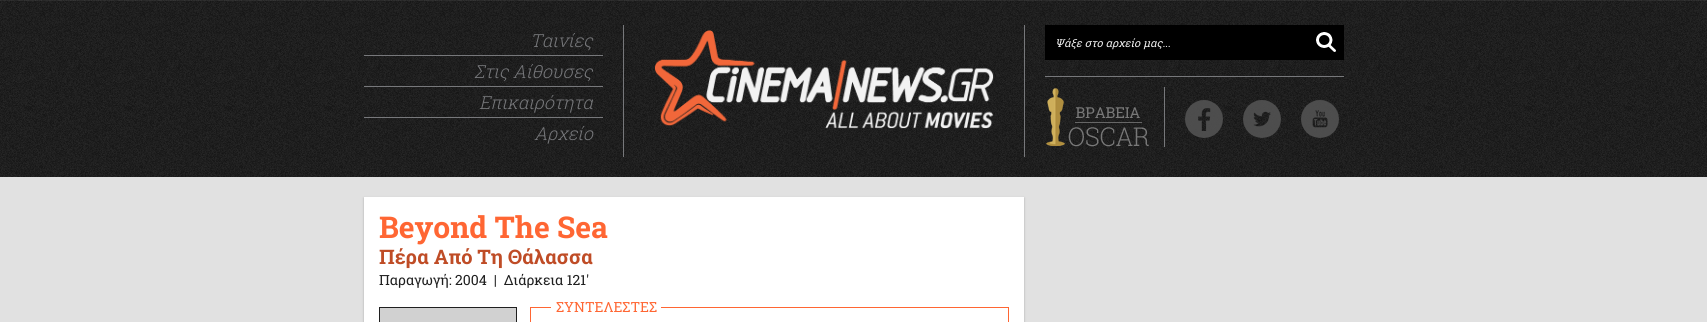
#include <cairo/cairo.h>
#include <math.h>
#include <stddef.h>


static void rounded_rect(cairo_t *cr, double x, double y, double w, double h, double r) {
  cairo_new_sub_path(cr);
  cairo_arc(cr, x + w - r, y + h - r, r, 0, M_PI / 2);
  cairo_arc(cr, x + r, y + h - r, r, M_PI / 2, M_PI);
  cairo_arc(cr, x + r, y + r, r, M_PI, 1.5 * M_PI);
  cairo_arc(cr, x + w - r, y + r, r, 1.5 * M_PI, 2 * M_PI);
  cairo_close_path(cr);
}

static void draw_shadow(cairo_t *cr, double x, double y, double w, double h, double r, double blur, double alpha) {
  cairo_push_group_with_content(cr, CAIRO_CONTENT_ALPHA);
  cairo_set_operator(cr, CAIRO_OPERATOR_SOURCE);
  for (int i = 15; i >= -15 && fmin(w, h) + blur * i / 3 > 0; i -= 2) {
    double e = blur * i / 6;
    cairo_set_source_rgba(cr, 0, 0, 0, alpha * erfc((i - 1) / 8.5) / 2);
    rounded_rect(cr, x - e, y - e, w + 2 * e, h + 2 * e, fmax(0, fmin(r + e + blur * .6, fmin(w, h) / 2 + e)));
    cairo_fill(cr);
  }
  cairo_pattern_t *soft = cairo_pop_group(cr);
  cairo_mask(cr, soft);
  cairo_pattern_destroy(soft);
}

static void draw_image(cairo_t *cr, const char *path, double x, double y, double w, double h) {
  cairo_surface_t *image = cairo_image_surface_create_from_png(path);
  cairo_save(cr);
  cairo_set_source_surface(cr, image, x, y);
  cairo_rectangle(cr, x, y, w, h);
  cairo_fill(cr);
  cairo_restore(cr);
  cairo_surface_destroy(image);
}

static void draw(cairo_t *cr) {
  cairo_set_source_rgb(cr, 225 / 255.0, 225 / 255.0, 225 / 255.0);
  cairo_paint(cr);
  draw_image(cr, "images/1.png", 0, 0, 1707, 177);
  cairo_set_source_rgb(cr, 119 / 255.0, 120 / 255.0, 123 / 255.0);
  cairo_rectangle(cr, 623, 25, 1, 132);
  cairo_fill(cr);
  cairo_rectangle(cr, 364, 55, 239, 1);
  cairo_fill(cr);
  cairo_rectangle(cr, 364, 86, 239, 1);
  cairo_fill(cr);
  cairo_rectangle(cr, 364, 117, 239, 1);
  cairo_fill(cr);
  draw_image(cr, "images/2.png", 655, 30, 339, 99);
  cairo_rectangle(cr, 1024, 25, 1, 132);
  cairo_fill(cr);
  cairo_set_source_rgb(cr, 0, 0, 0);
  cairo_rectangle(cr, 1045, 25, 299, 35);
  cairo_fill(cr);
  draw_image(cr, "images/3.png", 1316, 32, 20, 20);
  cairo_set_source_rgb(cr, 119 / 255.0, 120 / 255.0, 123 / 255.0);
  cairo_rectangle(cr, 1045, 76, 299, 1);
  cairo_fill(cr);
  cairo_rectangle(cr, 1164, 87, 1, 60);
  cairo_fill(cr);
  draw_image(cr, "images/4.png", 1046, 88, 103, 59);
  draw_image(cr, "images/5.png", 1185, 100, 38, 38);
  draw_image(cr, "images/6.png", 1243, 100, 38, 38);
  draw_image(cr, "images/7.png", 1301, 100, 38, 38);
  cairo_set_source_rgb(cr, 170 / 255.0, 170 / 255.0, 170 / 255.0);
  draw_shadow(cr, 364, 198, 660, 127, 0, 1, 1);
  cairo_set_source_rgb(cr, 1, 1, 1);
  cairo_rectangle(cr, 364, 197, 660, 125);
  cairo_fill(cr);
  cairo_rectangle(cr, 379.5, 307.5, 137, 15);
  cairo_set_source_rgb(cr, 31 / 255.0, 31 / 255.0, 31 / 255.0);
  cairo_set_line_width(cr, 1);
  cairo_stroke(cr);
  cairo_set_source_rgb(cr, 209 / 255.0, 209 / 255.0, 209 / 255.0);
  cairo_rectangle(cr, 380, 308, 136, 14);
  cairo_fill(cr);
  cairo_rectangle(cr, 530.5, 307.5, 478, 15);
  cairo_set_source_rgb(cr, 1, 102 / 255.0, 51 / 255.0);
  cairo_stroke(cr);
  cairo_set_source_rgb(cr, 1, 1, 1);
  cairo_rectangle(cr, 551, 307, 110, 1);
  cairo_fill(cr);
  cairo_select_font_face(cr, "Roboto Slab Light", CAIRO_FONT_SLANT_ITALIC, CAIRO_FONT_WEIGHT_NORMAL);
  cairo_set_font_size(cr, 18);
  cairo_set_source_rgb(cr, 119 / 255.0, 120 / 255.0, 123 / 255.0);
  cairo_move_to(cr, 530, 47);
  cairo_show_text(cr, "Ταινίες");
  cairo_move_to(cr, 474, 78);
  cairo_show_text(cr, "Στις Αίθουσες");
  cairo_move_to(cr, 479, 109);
  cairo_show_text(cr, "Επικαιρότητα");
  cairo_move_to(cr, 534, 140);
  cairo_show_text(cr, "Αρχείο");
  cairo_select_font_face(cr, "Roboto Slab", CAIRO_FONT_SLANT_ITALIC, CAIRO_FONT_WEIGHT_NORMAL);
  cairo_set_font_size(cr, 11);
  cairo_set_source_rgb(cr, 238 / 255.0, 238 / 255.0, 238 / 255.0);
  cairo_move_to(cr, 1055, 47);
  cairo_show_text(cr, "Ψάξε στο αρχείο μας...");
  cairo_select_font_face(cr, "Roboto Slab", CAIRO_FONT_SLANT_NORMAL, CAIRO_FONT_WEIGHT_BOLD);
  cairo_set_font_size(cr, 30);
  cairo_set_source_rgb(cr, 1, 102 / 255.0, 51 / 255.0);
  cairo_move_to(cr, 379, 238);
  cairo_show_text(cr, "Beyond The Sea");
  cairo_set_font_size(cr, 20);
  cairo_set_source_rgb(cr, 191 / 255.0, 76 / 255.0, 38 / 255.0);
  cairo_move_to(cr, 379, 264);
  cairo_show_text(cr, "Πέρα Από Τη Θάλασσα");
  cairo_select_font_face(cr, "Roboto Slab", CAIRO_FONT_SLANT_NORMAL, CAIRO_FONT_WEIGHT_NORMAL);
  cairo_set_font_size(cr, 14);
  cairo_set_source_rgb(cr, 31 / 255.0, 31 / 255.0, 31 / 255.0);
  cairo_move_to(cr, 379, 285);
  cairo_show_text(cr, "Παραγωγή: 2004  |  Διάρκεια 121'");
  cairo_set_source_rgb(cr, 1, 102 / 255.0, 51 / 255.0);
  cairo_move_to(cr, 556, 312);
  cairo_show_text(cr, "ΣΥΝΤΕΛΕΣΤΕΣ");
}

int main(void) {
  cairo_surface_t *surface = cairo_image_surface_create(CAIRO_FORMAT_RGB24, 1707, 322);
  cairo_t *cr = cairo_create(surface);
  cairo_font_options_t *options = cairo_font_options_create();
  cairo_font_options_set_hint_metrics(options, CAIRO_HINT_METRICS_OFF);
  cairo_font_options_set_hint_style(options, CAIRO_HINT_STYLE_NONE);
  cairo_set_font_options(cr, options);
  cairo_set_miter_limit(cr, 4);
  draw(cr);
  cairo_surface_write_to_png(surface, "out.png");
  cairo_font_options_destroy(options);
  cairo_destroy(cr);
  cairo_surface_destroy(surface);
  return 0;
}
